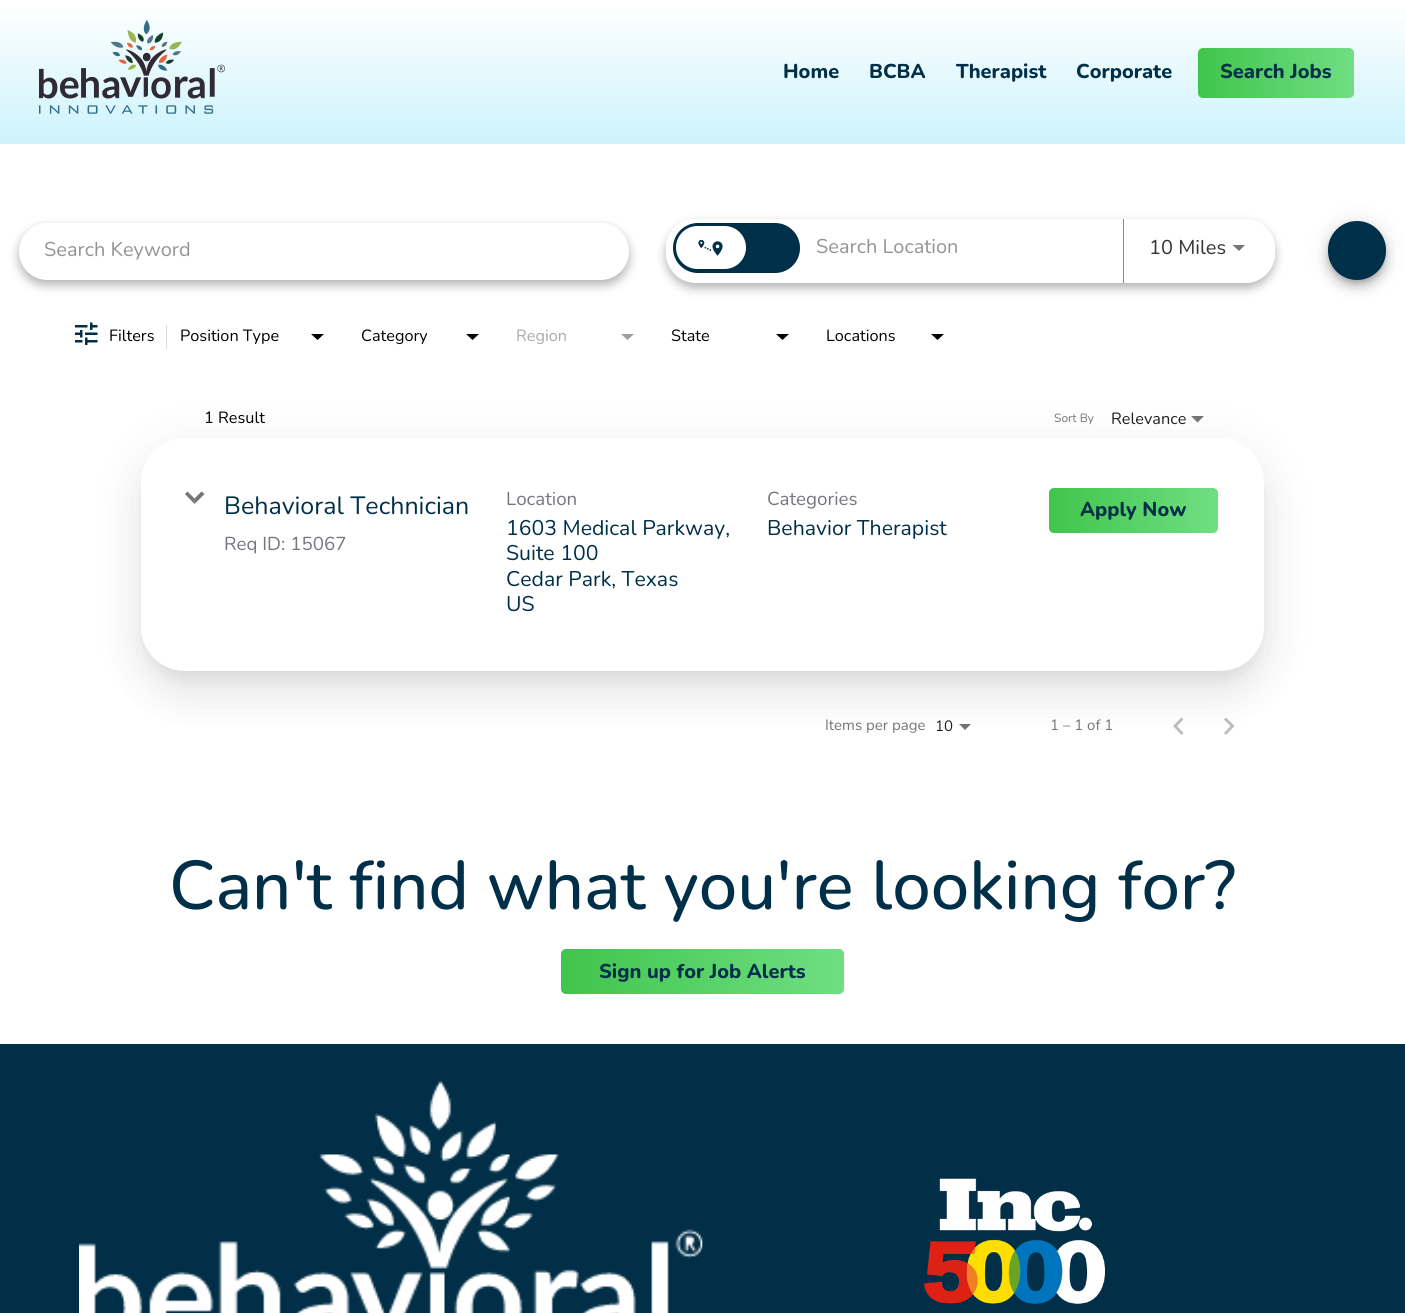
#include <cairo/cairo.h>
#include <math.h>
#include <stddef.h>


static void rounded_rect(cairo_t *cr, double x, double y, double w, double h, double r) {
  cairo_new_sub_path(cr);
  cairo_arc(cr, x + w - r, y + h - r, r, 0, M_PI / 2);
  cairo_arc(cr, x + r, y + h - r, r, M_PI / 2, M_PI);
  cairo_arc(cr, x + r, y + r, r, M_PI, 1.5 * M_PI);
  cairo_arc(cr, x + w - r, y + r, r, 1.5 * M_PI, 2 * M_PI);
  cairo_close_path(cr);
}

static void draw_shadow(cairo_t *cr, double x, double y, double w, double h, double r, double blur, double alpha) {
  cairo_push_group_with_content(cr, CAIRO_CONTENT_ALPHA);
  cairo_set_operator(cr, CAIRO_OPERATOR_SOURCE);
  for (int i = 15; i >= -15 && fmin(w, h) + blur * i / 3 > 0; i -= 2) {
    double e = blur * i / 6;
    cairo_set_source_rgba(cr, 0, 0, 0, alpha * erfc((i - 1) / 8.5) / 2);
    rounded_rect(cr, x - e, y - e, w + 2 * e, h + 2 * e, fmax(0, fmin(r + e + blur * .6, fmin(w, h) / 2 + e)));
    cairo_fill(cr);
  }
  cairo_pattern_t *soft = cairo_pop_group(cr);
  cairo_mask(cr, soft);
  cairo_pattern_destroy(soft);
}

static void draw_image(cairo_t *cr, const char *path, double x, double y, double w, double h) {
  cairo_surface_t *image = cairo_image_surface_create_from_png(path);
  cairo_save(cr);
  cairo_set_source_surface(cr, image, x, y);
  cairo_rectangle(cr, x, y, w, h);
  cairo_fill(cr);
  cairo_restore(cr);
  cairo_surface_destroy(image);
}

static void draw(cairo_t *cr) {
  cairo_pattern_t *gradient;
  cairo_set_source_rgb(cr, 1, 1, 1);
  cairo_paint(cr);
  gradient = cairo_pattern_create_linear(703, 0, 703, 144);
  cairo_pattern_add_color_stop_rgba(gradient, 0, 1, 1, 1, 1);
  cairo_pattern_add_color_stop_rgba(gradient, 1, 205 / 255.0, 243 / 255.0, 252 / 255.0, 1);
  cairo_set_source(cr, gradient);
  cairo_pattern_destroy(gradient);
  cairo_rectangle(cr, 0, 7, 1405, 137);
  cairo_fill(cr);
  draw_image(cr, "images/1.png", 39, 20, 186, 94);
  gradient = cairo_pattern_create_linear(1198, 73, 1354, 72);
  cairo_pattern_add_color_stop_rgba(gradient, 0, 64 / 255.0, 197 / 255.0, 76 / 255.0, 1);
  cairo_pattern_add_color_stop_rgba(gradient, 1, 112 / 255.0, 222 / 255.0, 130 / 255.0, 1);
  cairo_set_source(cr, gradient);
  cairo_pattern_destroy(gradient);
  rounded_rect(cr, 1198, 48, 156, 50, 5);
  cairo_fill(cr);
  cairo_set_source_rgb(cr, 0, 0, 0);
  draw_shadow(cr, 19, 228, 610, 57, 28.5, 5, 0.3);
  cairo_set_source_rgb(cr, 1, 1, 1);
  rounded_rect(cr, 19, 223, 610, 57, 28.5);
  cairo_fill(cr);
  cairo_save(cr);
  cairo_set_fill_rule(cr, CAIRO_FILL_RULE_EVEN_ODD);
  cairo_new_path(cr);
  cairo_move_to(cr, 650, 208);
  cairo_line_to(cr, 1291, 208);
  cairo_line_to(cr, 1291, 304);
  cairo_line_to(cr, 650, 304);
  cairo_close_path(cr);
  cairo_move_to(cr, 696, 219);
  cairo_line_to(cr, 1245, 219);
  cairo_curve_to(cr, 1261.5, 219, 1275, 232.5, 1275, 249);
  cairo_line_to(cr, 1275, 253);
  cairo_curve_to(cr, 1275, 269.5, 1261.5, 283, 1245, 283);
  cairo_line_to(cr, 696, 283);
  cairo_curve_to(cr, 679.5, 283, 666, 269.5, 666, 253);
  cairo_line_to(cr, 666, 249);
  cairo_curve_to(cr, 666, 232.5, 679.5, 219, 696, 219);
  cairo_close_path(cr);
  cairo_clip(cr);
  cairo_set_source_rgb(cr, 0, 0, 0);
  draw_shadow(cr, 666, 224, 609, 64, 30, 5, 0.3);
  cairo_restore(cr);
  rounded_rect(cr, 666, 219, 447, 57, 28.5);
  cairo_fill(cr);
  rounded_rect(cr, 666, 219, 140, 57, 28.5);
  cairo_fill(cr);
  cairo_set_source_rgb(cr, 0, 48 / 255.0, 73 / 255.0);
  rounded_rect(cr, 673, 223, 127, 50, 25);
  cairo_fill(cr);
  rounded_rect(cr, 673.5, 223.5, 126, 49, 24.5);
  cairo_set_source_rgba(cr, 0, 0, 0, 0.12);
  cairo_set_line_width(cr, 1);
  cairo_stroke(cr);
  cairo_set_source_rgb(cr, 0, 48 / 255.0, 73 / 255.0);
  cairo_new_path(cr);
  cairo_move_to(cr, 697.5, 224);
  cairo_line_to(cr, 749, 224);
  cairo_line_to(cr, 749, 271);
  cairo_line_to(cr, 697.5, 271);
  cairo_curve_to(cr, 684.5, 271, 674, 260.5, 674, 247.5);
  cairo_curve_to(cr, 674, 234.5, 684.5, 224, 697.5, 224);
  cairo_close_path(cr);
  cairo_fill(cr);
  cairo_set_source_rgb(cr, 1, 1, 1);
  rounded_rect(cr, 676, 226, 70, 43, 21.5);
  cairo_fill(cr);
  draw_image(cr, "images/2.png", 698, 239, 25, 17);
  cairo_set_source_rgb(cr, 0, 48 / 255.0, 73 / 255.0);
  cairo_new_path(cr);
  cairo_move_to(cr, 749, 224);
  cairo_line_to(cr, 775.5, 224);
  cairo_curve_to(cr, 788.5, 224, 799, 234.5, 799, 247.5);
  cairo_curve_to(cr, 799, 260.5, 788.5, 271, 775.5, 271);
  cairo_line_to(cr, 749, 271);
  cairo_close_path(cr);
  cairo_fill(cr);
  cairo_set_source_rgb(cr, 1, 1, 1);
  cairo_new_path(cr);
  cairo_move_to(cr, 1123, 219);
  cairo_line_to(cr, 1245, 219);
  cairo_curve_to(cr, 1261.5, 219, 1275, 232.5, 1275, 249);
  cairo_line_to(cr, 1275, 253);
  cairo_curve_to(cr, 1275, 269.5, 1261.5, 283, 1245, 283);
  cairo_line_to(cr, 1123, 283);
  cairo_close_path(cr);
  cairo_fill(cr);
  cairo_set_source_rgb(cr, 136 / 255.0, 136 / 255.0, 136 / 255.0);
  cairo_rectangle(cr, 1123, 219, 1, 64);
  cairo_fill(cr);
  cairo_set_source_rgb(cr, 117 / 255.0, 117 / 255.0, 117 / 255.0);
  cairo_new_path(cr);
  cairo_move_to(cr, 1232.5, 245);
  cairo_line_to(cr, 1245, 245);
  cairo_line_to(cr, 1239, 251);
  cairo_close_path(cr);
  cairo_fill(cr);
  cairo_set_source_rgb(cr, 0, 0, 0);
  draw_shadow(cr, 1328, 223, 58, 58, 29, 11, 0.12);
  draw_shadow(cr, 1328, 229, 58, 59, 29, 6, 0.14);
  draw_shadow(cr, 1329, 226, 56, 57, 28, 3, 0.2);
  cairo_set_source_rgb(cr, 0, 48 / 255.0, 73 / 255.0);
  rounded_rect(cr, 1328, 221, 58, 59, 29);
  cairo_fill(cr);
  draw_image(cr, "images/3.png", 75, 322, 23, 23);
  cairo_set_source_rgb(cr, 221 / 255.0, 221 / 255.0, 221 / 255.0);
  cairo_rectangle(cr, 166, 325, 1, 24);
  cairo_fill(cr);
  cairo_set_source_rgb(cr, 0, 0, 0);
  cairo_new_path(cr);
  cairo_move_to(cr, 311, 334);
  cairo_line_to(cr, 324, 334);
  cairo_line_to(cr, 317.5, 340);
  cairo_close_path(cr);
  cairo_fill(cr);
  cairo_new_path(cr);
  cairo_move_to(cr, 466, 334);
  cairo_line_to(cr, 479, 334);
  cairo_line_to(cr, 472.5, 340);
  cairo_close_path(cr);
  cairo_fill(cr);
  cairo_set_source_rgb(cr, 158 / 255.0, 158 / 255.0, 158 / 255.0);
  cairo_new_path(cr);
  cairo_move_to(cr, 621, 334);
  cairo_line_to(cr, 634, 334);
  cairo_line_to(cr, 627.5, 340);
  cairo_close_path(cr);
  cairo_fill(cr);
  cairo_set_source_rgb(cr, 0, 0, 0);
  cairo_new_path(cr);
  cairo_move_to(cr, 776, 334);
  cairo_line_to(cr, 789, 334);
  cairo_line_to(cr, 782.5, 340);
  cairo_close_path(cr);
  cairo_fill(cr);
  cairo_new_path(cr);
  cairo_move_to(cr, 931, 334);
  cairo_line_to(cr, 944, 334);
  cairo_line_to(cr, 937.5, 340);
  cairo_close_path(cr);
  cairo_fill(cr);
  cairo_set_source_rgb(cr, 117 / 255.0, 117 / 255.0, 117 / 255.0);
  cairo_new_path(cr);
  cairo_move_to(cr, 1191, 416);
  cairo_line_to(cr, 1204, 416);
  cairo_line_to(cr, 1197.5, 422.5);
  cairo_close_path(cr);
  cairo_fill(cr);
  cairo_set_source_rgb(cr, 0, 0, 0);
  draw_shadow(cr, 133, 439, 1140, 251, 53, 24, 0.05);
  draw_shadow(cr, 138, 459, 1130, 241, 48, 19.5, 0.06);
  draw_shadow(cr, 149, 458, 1107, 218, 36, 8, 0.08);
  cairo_set_source_rgb(cr, 1, 1, 1);
  rounded_rect(cr, 141, 438, 1123, 233, 44);
  cairo_fill(cr);
  cairo_set_source_rgb(cr, 117 / 255.0, 117 / 255.0, 117 / 255.0);
  cairo_new_path(cr);
  cairo_move_to(cr, 204.5, 494);
  cairo_line_to(cr, 194.5, 504);
  cairo_line_to(cr, 194.5, 498.5);
  cairo_line_to(cr, 201.5, 491.5);
  cairo_close_path(cr);
  cairo_fill(cr);
  cairo_set_source_rgba(cr, 0, 0, 0, 0.54);
  cairo_new_path(cr);
  cairo_move_to(cr, 194.5, 504);
  cairo_line_to(cr, 185, 494);
  cairo_line_to(cr, 187.5, 491.5);
  cairo_line_to(cr, 194.5, 498.5);
  cairo_close_path(cr);
  cairo_fill(cr);
  gradient = cairo_pattern_create_linear(1049, 510, 1218, 510);
  cairo_pattern_add_color_stop_rgba(gradient, 0, 64 / 255.0, 197 / 255.0, 76 / 255.0, 1);
  cairo_pattern_add_color_stop_rgba(gradient, 1, 112 / 255.0, 222 / 255.0, 130 / 255.0, 1);
  cairo_set_source(cr, gradient);
  cairo_pattern_destroy(gradient);
  rounded_rect(cr, 1049, 488, 169, 45, 5);
  cairo_fill(cr);
  cairo_set_source_rgb(cr, 116 / 255.0, 116 / 255.0, 116 / 255.0);
  cairo_new_path(cr);
  cairo_move_to(cr, 959, 724);
  cairo_line_to(cr, 971, 724);
  cairo_line_to(cr, 965, 730);
  cairo_close_path(cr);
  cairo_fill(cr);
  cairo_set_source_rgba(cr, 0, 0, 0, 0.26);
  cairo_new_path(cr);
  cairo_move_to(cr, 1183.5, 719.5);
  cairo_line_to(cr, 1181.5, 717.5);
  cairo_line_to(cr, 1173, 726);
  cairo_line_to(cr, 1181.5, 735);
  cairo_line_to(cr, 1183.5, 733);
  cairo_line_to(cr, 1177, 726);
  cairo_close_path(cr);
  cairo_move_to(cr, 1226, 717.5);
  cairo_line_to(cr, 1224, 719.5);
  cairo_line_to(cr, 1230.5, 726);
  cairo_line_to(cr, 1224, 733);
  cairo_line_to(cr, 1226, 735);
  cairo_line_to(cr, 1234.5, 726);
  cairo_close_path(cr);
  cairo_fill(cr);
  gradient = cairo_pattern_create_linear(561, 971, 844, 971);
  cairo_pattern_add_color_stop_rgba(gradient, 0, 64 / 255.0, 197 / 255.0, 76 / 255.0, 1);
  cairo_pattern_add_color_stop_rgba(gradient, 1, 112 / 255.0, 222 / 255.0, 130 / 255.0, 1);
  cairo_set_source(cr, gradient);
  cairo_pattern_destroy(gradient);
  rounded_rect(cr, 561, 949, 283, 45, 5);
  cairo_fill(cr);
  cairo_set_source_rgb(cr, 0, 47 / 255.0, 71 / 255.0);
  cairo_rectangle(cr, 0, 1044, 1405, 269);
  cairo_fill(cr);
  draw_image(cr, "images/4.png", 79, 1081, 624, 232);
  draw_image(cr, "images/5.png", 923, 1178, 182, 126);
  cairo_select_font_face(cr, "Nunito ExtraBold", CAIRO_FONT_SLANT_NORMAL, CAIRO_FONT_WEIGHT_NORMAL);
  cairo_set_font_size(cr, 20);
  cairo_set_source_rgb(cr, 0, 48 / 255.0, 73 / 255.0);
  cairo_move_to(cr, 783, 78);
  cairo_show_text(cr, "Home");
  cairo_move_to(cr, 869, 78);
  cairo_show_text(cr, "BCBA");
  cairo_move_to(cr, 956, 78);
  cairo_show_text(cr, "Therapist");
  cairo_move_to(cr, 1076, 78);
  cairo_show_text(cr, "Corporate");
  cairo_move_to(cr, 1220, 78);
  cairo_show_text(cr, "Search Jobs");
  cairo_select_font_face(cr, "Nunito", CAIRO_FONT_SLANT_NORMAL, CAIRO_FONT_WEIGHT_NORMAL);
  cairo_set_source_rgb(cr, 148 / 255.0, 148 / 255.0, 148 / 255.0);
  cairo_move_to(cr, 44, 256);
  cairo_show_text(cr, "Search Keyword");
  cairo_move_to(cr, 816, 253);
  cairo_show_text(cr, "Search Location");
  cairo_set_source_rgb(cr, 51 / 255.0, 51 / 255.0, 51 / 255.0);
  cairo_move_to(cr, 1149, 254);
  cairo_show_text(cr, "10 Miles");
  cairo_set_font_size(cr, 16.25);
  cairo_set_source_rgb(cr, 0, 0, 0);
  cairo_move_to(cr, 109, 341);
  cairo_show_text(cr, "Filters");
  cairo_move_to(cr, 180, 341);
  cairo_show_text(cr, "Position Type");
  cairo_move_to(cr, 361, 341);
  cairo_show_text(cr, "Category");
  cairo_set_source_rgb(cr, 170 / 255.0, 170 / 255.0, 170 / 255.0);
  cairo_move_to(cr, 516, 341);
  cairo_show_text(cr, "Region");
  cairo_set_source_rgb(cr, 0, 0, 0);
  cairo_move_to(cr, 671, 341);
  cairo_show_text(cr, "State");
  cairo_move_to(cr, 826, 341);
  cairo_show_text(cr, "Locations");
  cairo_move_to(cr, 204, 423);
  cairo_show_text(cr, "1 Result");
  cairo_set_font_size(cr, 12);
  cairo_set_source_rgb(cr, 117 / 255.0, 117 / 255.0, 117 / 255.0);
  cairo_move_to(cr, 1054, 422);
  cairo_show_text(cr, "Sort By");
  cairo_set_font_size(cr, 16.25);
  cairo_set_source_rgb(cr, 33 / 255.0, 33 / 255.0, 33 / 255.0);
  cairo_move_to(cr, 1111, 424);
  cairo_show_text(cr, "Relevance");
  cairo_set_font_size(cr, 25);
  cairo_set_source_rgb(cr, 0, 48 / 255.0, 73 / 255.0);
  cairo_move_to(cr, 224, 514);
  cairo_show_text(cr, "Behavioral Technician");
  cairo_set_font_size(cr, 18.75);
  cairo_set_source_rgb(cr, 118 / 255.0, 118 / 255.0, 126 / 255.0);
  cairo_move_to(cr, 224, 550);
  cairo_show_text(cr, "Req ID: 15067");
  cairo_move_to(cr, 506, 505);
  cairo_show_text(cr, "Location");
  cairo_set_font_size(cr, 21.25);
  cairo_set_source_rgb(cr, 0, 48 / 255.0, 73 / 255.0);
  cairo_move_to(cr, 506, 535);
  cairo_show_text(cr, "1603 Medical Parkway,");
  cairo_move_to(cr, 506, 560);
  cairo_show_text(cr, "Suite 100");
  cairo_move_to(cr, 506, 586);
  cairo_show_text(cr, "Cedar Park, Texas");
  cairo_move_to(cr, 506, 611);
  cairo_show_text(cr, "US");
  cairo_set_font_size(cr, 18.75);
  cairo_set_source_rgb(cr, 118 / 255.0, 118 / 255.0, 126 / 255.0);
  cairo_move_to(cr, 767, 505);
  cairo_show_text(cr, "Categories");
  cairo_set_font_size(cr, 21.25);
  cairo_set_source_rgb(cr, 0, 48 / 255.0, 73 / 255.0);
  cairo_move_to(cr, 767, 535);
  cairo_show_text(cr, "Behavior Therapist");
  cairo_select_font_face(cr, "Nunito ExtraBold", CAIRO_FONT_SLANT_NORMAL, CAIRO_FONT_WEIGHT_NORMAL);
  cairo_set_font_size(cr, 20);
  cairo_move_to(cr, 1080, 516);
  cairo_show_text(cr, "Apply Now");
  cairo_select_font_face(cr, "Nunito", CAIRO_FONT_SLANT_NORMAL, CAIRO_FONT_WEIGHT_NORMAL);
  cairo_set_font_size(cr, 15);
  cairo_set_source_rgb(cr, 117 / 255.0, 117 / 255.0, 117 / 255.0);
  cairo_move_to(cr, 825, 730);
  cairo_show_text(cr, "Items per page");
  cairo_set_source_rgb(cr, 33 / 255.0, 33 / 255.0, 33 / 255.0);
  cairo_move_to(cr, 935, 731);
  cairo_show_text(cr, "10");
  cairo_set_source_rgb(cr, 117 / 255.0, 117 / 255.0, 117 / 255.0);
  cairo_move_to(cr, 1050, 730);
  cairo_show_text(cr, "1 – 1 of 1");
  cairo_select_font_face(cr, "Nunito Medium", CAIRO_FONT_SLANT_NORMAL, CAIRO_FONT_WEIGHT_NORMAL);
  cairo_set_font_size(cr, 68.75);
  cairo_set_source_rgb(cr, 0, 48 / 255.0, 73 / 255.0);
  cairo_move_to(cr, 169, 909);
  cairo_show_text(cr, "Can't find what you're looking for?");
  cairo_select_font_face(cr, "Nunito ExtraBold", CAIRO_FONT_SLANT_NORMAL, CAIRO_FONT_WEIGHT_NORMAL);
  cairo_set_font_size(cr, 20);
  cairo_move_to(cr, 599, 978);
  cairo_show_text(cr, "Sign up for Job Alerts");
}

int main(void) {
  cairo_surface_t *surface = cairo_image_surface_create(CAIRO_FORMAT_RGB24, 1405, 1313);
  cairo_t *cr = cairo_create(surface);
  cairo_font_options_t *options = cairo_font_options_create();
  cairo_font_options_set_hint_metrics(options, CAIRO_HINT_METRICS_OFF);
  cairo_font_options_set_hint_style(options, CAIRO_HINT_STYLE_NONE);
  cairo_set_font_options(cr, options);
  cairo_set_miter_limit(cr, 4);
  draw(cr);
  cairo_surface_write_to_png(surface, "out.png");
  cairo_font_options_destroy(options);
  cairo_destroy(cr);
  cairo_surface_destroy(surface);
  return 0;
}
